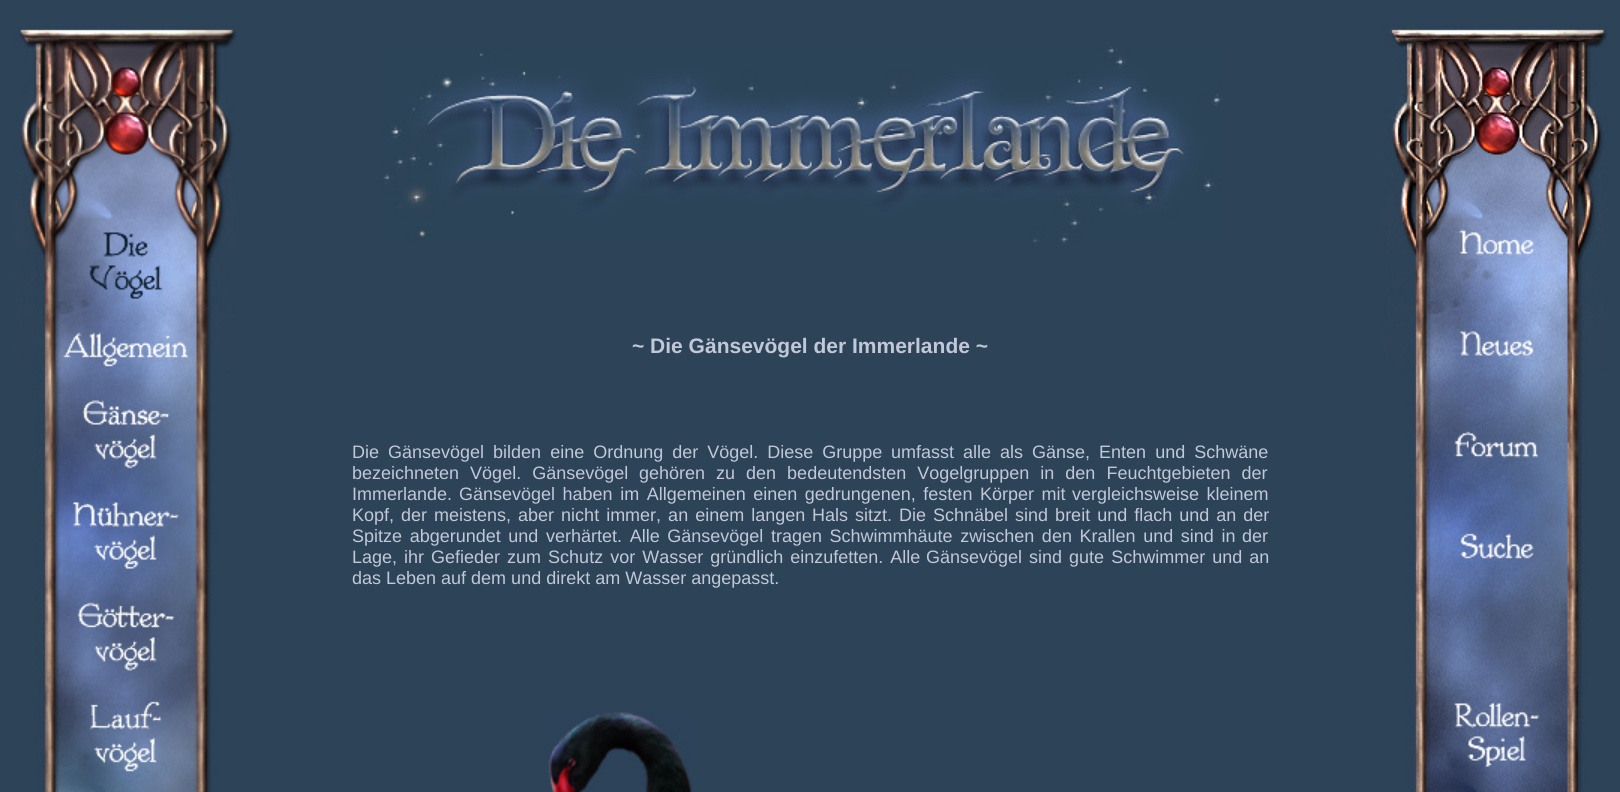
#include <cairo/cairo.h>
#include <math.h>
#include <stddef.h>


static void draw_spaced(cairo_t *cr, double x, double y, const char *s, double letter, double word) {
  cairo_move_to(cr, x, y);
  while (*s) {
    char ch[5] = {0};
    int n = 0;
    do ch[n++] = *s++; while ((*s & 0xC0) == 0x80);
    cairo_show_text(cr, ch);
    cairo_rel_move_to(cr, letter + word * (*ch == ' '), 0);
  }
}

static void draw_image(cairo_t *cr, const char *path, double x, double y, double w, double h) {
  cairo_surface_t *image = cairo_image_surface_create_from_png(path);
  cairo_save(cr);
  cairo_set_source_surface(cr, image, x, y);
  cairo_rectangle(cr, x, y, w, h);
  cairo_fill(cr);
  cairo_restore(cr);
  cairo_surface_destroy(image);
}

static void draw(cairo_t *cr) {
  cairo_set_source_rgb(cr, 45 / 255.0, 67 / 255.0, 88 / 255.0);
  cairo_paint(cr);
  draw_image(cr, "images/1.png", 14, 26, 223, 766);
  draw_image(cr, "images/2.png", 383, 46, 839, 198);
  draw_image(cr, "images/3.png", 546, 712, 147, 80);
  draw_image(cr, "images/4.png", 1383, 24, 225, 768);
  cairo_select_font_face(cr, "Liberation Sans", CAIRO_FONT_SLANT_NORMAL, CAIRO_FONT_WEIGHT_BOLD);
  cairo_set_font_size(cr, 21);
  cairo_set_source_rgb(cr, 193 / 255.0, 200 / 255.0, 216 / 255.0);
  cairo_move_to(cr, 632, 353);
  cairo_show_text(cr, "~ Die Gänsevögel der Immerlande ~");
  cairo_select_font_face(cr, "Liberation Sans", CAIRO_FONT_SLANT_NORMAL, CAIRO_FONT_WEIGHT_NORMAL);
  cairo_set_font_size(cr, 18);
  draw_spaced(cr, 352, 458, "Die Gänsevögel bilden eine Ordnung der Vögel. Diese Gruppe", 0, 4);
  draw_spaced(cr, 891, 458, "umfasst alle als Gänse, Enten und Schwäne", 0, 4);
  draw_spaced(cr, 352, 479, "bezeichneten Vögel. Gänsevögel", 0, 6);
  draw_spaced(cr, 639, 479, "gehören zu den bedeutendsten Vogelgruppen in den Feuchtgebieten der", 0, 6);
  cairo_move_to(cr, 352, 500);
  cairo_show_text(cr, "Immerlande.");
  draw_spaced(cr, 459, 500, "Gänsevögel haben im Allgemeinen einen gedrungenen, festen Körper mit", 0, 2.5);
  draw_spaced(cr, 1072, 500, "vergleichsweise kleinem", 0, 2.5);
  draw_spaced(cr, 352, 521, "Kopf, der meistens, aber nicht immer, an einem langen", 0, 2);
  draw_spaced(cr, 812, 521, "Hals sitzt. Die Schnäbel sind breit und flach und an der", 0, 2);
  draw_spaced(cr, 352, 542, "Spitze abgerundet und", 0, 2.6);
  draw_spaced(cr, 546, 542, "verhärtet. Alle Gänsevögel tragen Schwimmhäute zwischen den Krallen und sind in", 0, 2.6);
  cairo_move_to(cr, 1242, 542);
  cairo_show_text(cr, "der");
  draw_spaced(cr, 352, 563, "Lage, ihr Gefieder zum Schutz vor Wasser gründlich einzufetten. Alle", 0, 2);
  draw_spaced(cr, 926, 563, "Gänsevögel sind gute Schwimmer und an", 0, 2);
  cairo_move_to(cr, 352, 584);
  cairo_show_text(cr, "das Leben auf dem und direkt am Wasser angepasst.");
}

int main(void) {
  cairo_surface_t *surface = cairo_image_surface_create(CAIRO_FORMAT_RGB24, 1620, 792);
  cairo_t *cr = cairo_create(surface);
  cairo_font_options_t *options = cairo_font_options_create();
  cairo_font_options_set_hint_metrics(options, CAIRO_HINT_METRICS_OFF);
  cairo_font_options_set_hint_style(options, CAIRO_HINT_STYLE_NONE);
  cairo_set_font_options(cr, options);
  cairo_set_miter_limit(cr, 4);
  draw(cr);
  cairo_surface_write_to_png(surface, "out.png");
  cairo_font_options_destroy(options);
  cairo_destroy(cr);
  cairo_surface_destroy(surface);
  return 0;
}
